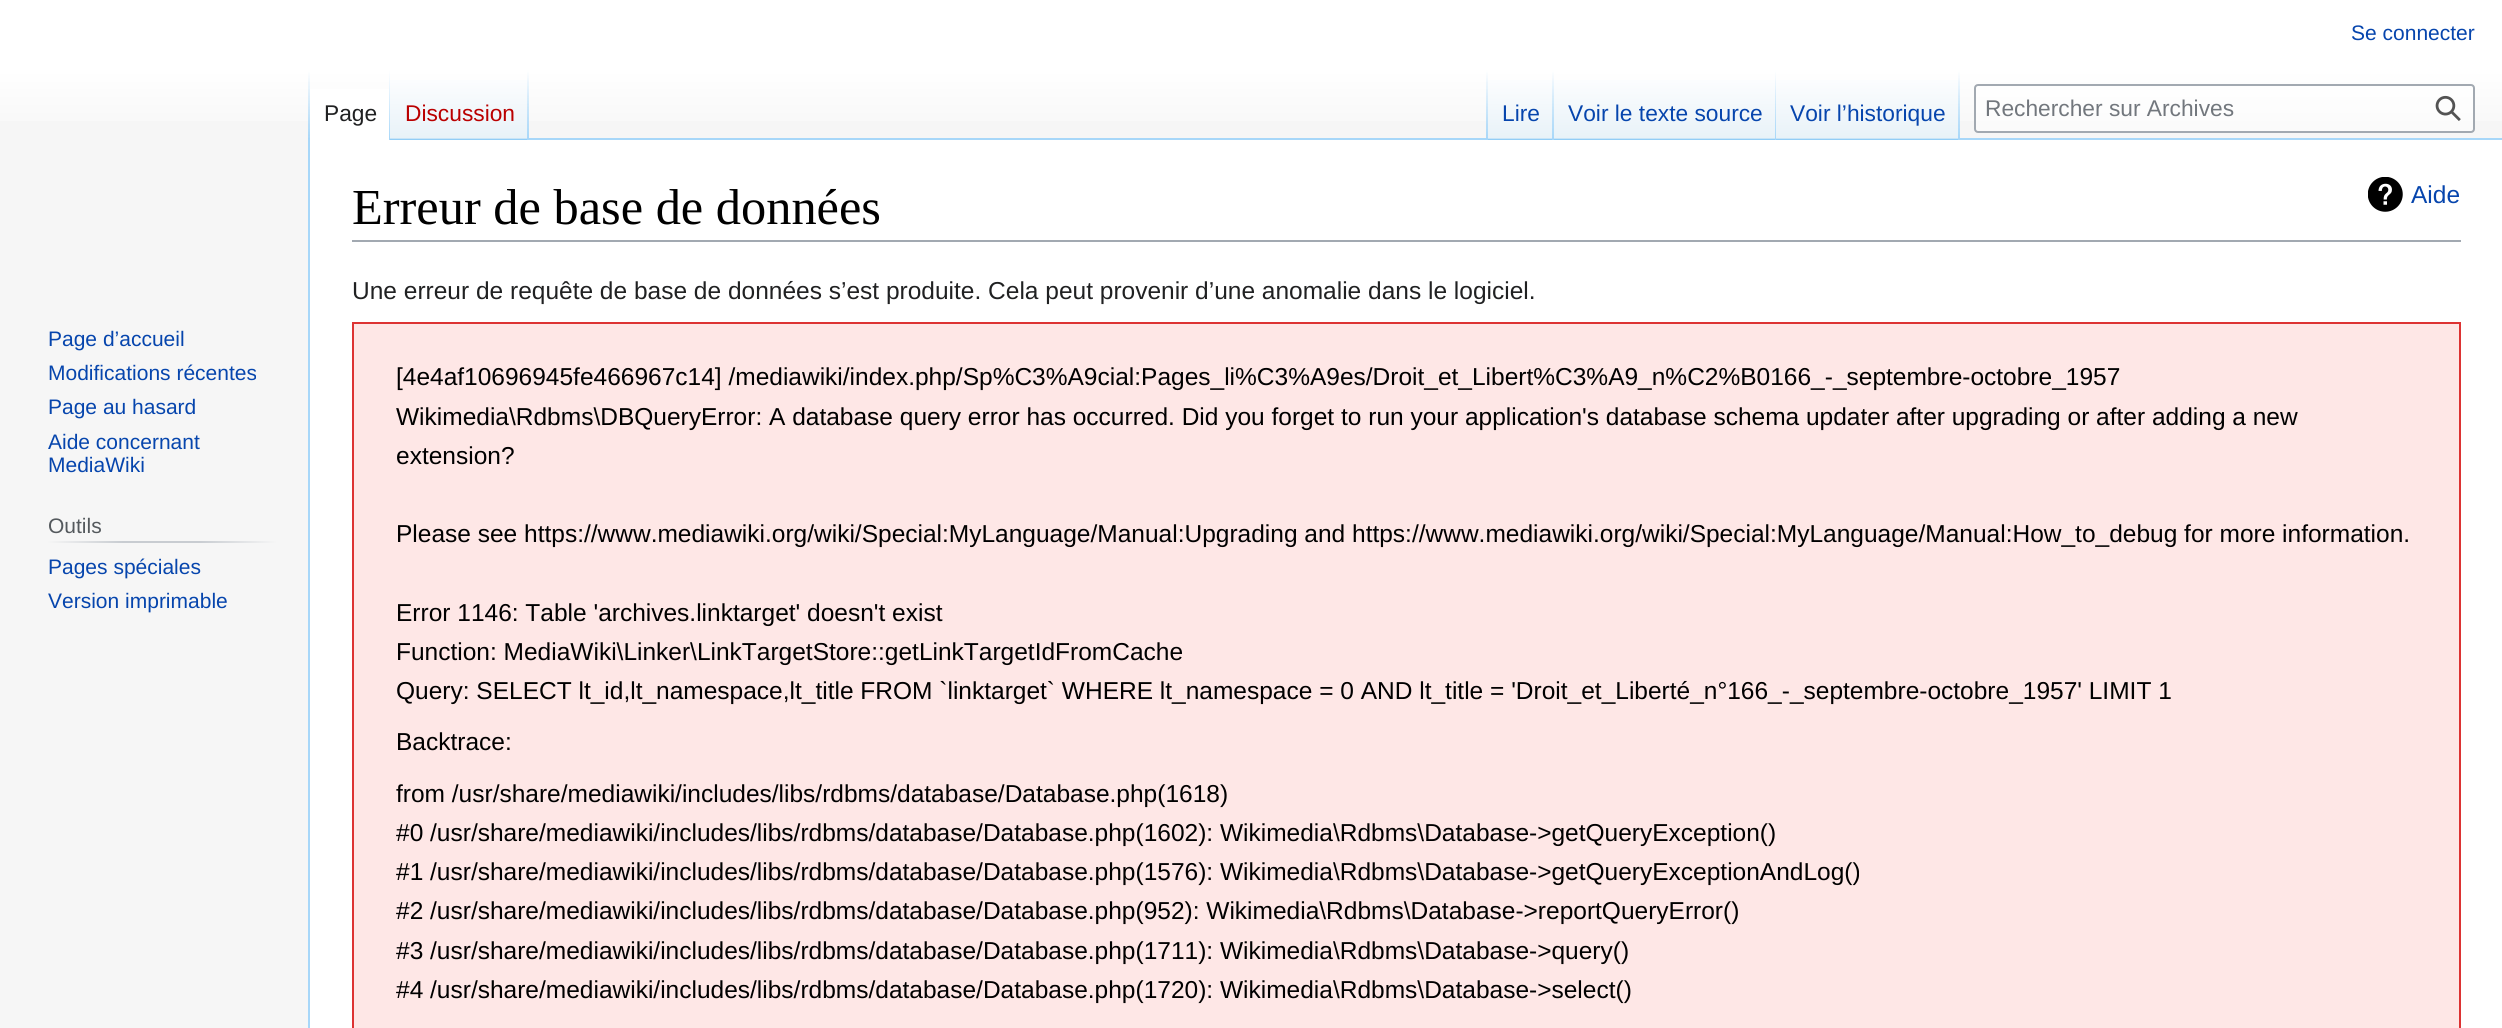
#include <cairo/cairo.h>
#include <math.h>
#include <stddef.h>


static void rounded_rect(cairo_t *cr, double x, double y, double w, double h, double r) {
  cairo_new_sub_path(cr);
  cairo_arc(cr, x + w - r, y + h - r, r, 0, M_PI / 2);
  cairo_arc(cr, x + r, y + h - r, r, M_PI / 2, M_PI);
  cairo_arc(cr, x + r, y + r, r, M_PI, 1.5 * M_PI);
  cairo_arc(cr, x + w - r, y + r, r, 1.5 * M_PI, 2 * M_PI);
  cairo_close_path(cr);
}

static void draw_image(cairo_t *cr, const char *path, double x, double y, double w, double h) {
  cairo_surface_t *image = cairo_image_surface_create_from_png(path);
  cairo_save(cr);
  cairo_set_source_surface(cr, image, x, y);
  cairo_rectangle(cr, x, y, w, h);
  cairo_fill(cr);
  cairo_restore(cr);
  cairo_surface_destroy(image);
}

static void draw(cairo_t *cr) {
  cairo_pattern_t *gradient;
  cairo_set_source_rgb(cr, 246 / 255.0, 246 / 255.0, 246 / 255.0);
  cairo_paint(cr);
  gradient = cairo_pattern_create_linear(1251, 0, 1251, 140);
  cairo_pattern_add_color_stop_rgba(gradient, 0.5, 1, 1, 1, 1);
  cairo_pattern_add_color_stop_rgba(gradient, 1, 246 / 255.0, 246 / 255.0, 246 / 255.0, 1);
  cairo_set_source(cr, gradient);
  cairo_pattern_destroy(gradient);
  cairo_rectangle(cr, 0, 0, 2502, 121);
  cairo_fill(cr);
  cairo_set_source_rgb(cr, 167 / 255.0, 215 / 255.0, 249 / 255.0);
  cairo_rectangle(cr, 308, 138, 2, 890);
  cairo_fill(cr);
  gradient = cairo_pattern_create_linear(309, 70, 309, 140);
  cairo_pattern_add_color_stop_rgba(gradient, 0, 167 / 255.0, 215 / 255.0, 249 / 255.0, 0);
  cairo_pattern_add_color_stop_rgba(gradient, 1, 167 / 255.0, 215 / 255.0, 249 / 255.0, 1);
  cairo_set_source(cr, gradient);
  cairo_pattern_destroy(gradient);
  cairo_rectangle(cr, 308, 70, 2, 70);
  cairo_fill(cr);
  cairo_set_source_rgb(cr, 1, 1, 1);
  cairo_rectangle(cr, 310, 89, 79, 51);
  cairo_fill(cr);
  gradient = cairo_pattern_create_linear(389, 70, 389, 140);
  cairo_pattern_add_color_stop_rgba(gradient, 0, 1, 1, 1, 1);
  cairo_pattern_add_color_stop_rgba(gradient, 1, 167 / 255.0, 215 / 255.0, 249 / 255.0, 1);
  cairo_set_source(cr, gradient);
  cairo_pattern_destroy(gradient);
  cairo_rectangle(cr, 389, 70, 1, 70);
  cairo_fill(cr);
  gradient = cairo_pattern_create_linear(459, 140, 459, 70);
  cairo_pattern_add_color_stop_rgba(gradient, 0, 119 / 255.0, 193 / 255.0, 246 / 255.0, 1);
  cairo_pattern_add_color_stop_rgba(gradient, 0.03, 232 / 255.0, 242 / 255.0, 248 / 255.0, 1);
  cairo_pattern_add_color_stop_rgba(gradient, 1, 1, 1, 1, 1);
  cairo_set_source(cr, gradient);
  cairo_pattern_destroy(gradient);
  cairo_rectangle(cr, 390, 80, 139, 60);
  cairo_fill(cr);
  gradient = cairo_pattern_create_linear(528, 70, 528, 140);
  cairo_pattern_add_color_stop_rgba(gradient, 0, 167 / 255.0, 215 / 255.0, 249 / 255.0, 0);
  cairo_pattern_add_color_stop_rgba(gradient, 1, 167 / 255.0, 215 / 255.0, 249 / 255.0, 1);
  cairo_set_source(cr, gradient);
  cairo_pattern_destroy(gradient);
  cairo_rectangle(cr, 527, 70, 2, 70);
  cairo_fill(cr);
  cairo_set_source_rgb(cr, 167 / 255.0, 215 / 255.0, 249 / 255.0);
  cairo_rectangle(cr, 529, 138, 1973, 2);
  cairo_fill(cr);
  gradient = cairo_pattern_create_linear(1487, 70, 1487, 140);
  cairo_pattern_add_color_stop_rgba(gradient, 0, 167 / 255.0, 215 / 255.0, 249 / 255.0, 0);
  cairo_pattern_add_color_stop_rgba(gradient, 1, 167 / 255.0, 215 / 255.0, 249 / 255.0, 1);
  cairo_set_source(cr, gradient);
  cairo_pattern_destroy(gradient);
  cairo_rectangle(cr, 1486, 70, 2, 70);
  cairo_fill(cr);
  gradient = cairo_pattern_create_linear(1521, 140, 1521, 70);
  cairo_pattern_add_color_stop_rgba(gradient, 0, 119 / 255.0, 193 / 255.0, 246 / 255.0, 1);
  cairo_pattern_add_color_stop_rgba(gradient, 0.03, 232 / 255.0, 242 / 255.0, 248 / 255.0, 1);
  cairo_pattern_add_color_stop_rgba(gradient, 1, 1, 1, 1, 1);
  cairo_set_source(cr, gradient);
  cairo_pattern_destroy(gradient);
  cairo_rectangle(cr, 1488, 80, 66, 60);
  cairo_fill(cr);
  gradient = cairo_pattern_create_linear(1553, 70, 1553, 140);
  cairo_pattern_add_color_stop_rgba(gradient, 0, 167 / 255.0, 215 / 255.0, 249 / 255.0, 0);
  cairo_pattern_add_color_stop_rgba(gradient, 1, 167 / 255.0, 215 / 255.0, 249 / 255.0, 1);
  cairo_set_source(cr, gradient);
  cairo_pattern_destroy(gradient);
  cairo_rectangle(cr, 1552, 70, 2, 70);
  cairo_fill(cr);
  gradient = cairo_pattern_create_linear(1665, 140, 1665, 70);
  cairo_pattern_add_color_stop_rgba(gradient, 0, 119 / 255.0, 193 / 255.0, 246 / 255.0, 1);
  cairo_pattern_add_color_stop_rgba(gradient, 0.03, 232 / 255.0, 242 / 255.0, 248 / 255.0, 1);
  cairo_pattern_add_color_stop_rgba(gradient, 1, 1, 1, 1, 1);
  cairo_set_source(cr, gradient);
  cairo_pattern_destroy(gradient);
  cairo_rectangle(cr, 1554, 80, 222, 60);
  cairo_fill(cr);
  gradient = cairo_pattern_create_linear(1775, 70, 1775, 140);
  cairo_pattern_add_color_stop_rgba(gradient, 0, 167 / 255.0, 215 / 255.0, 249 / 255.0, 0);
  cairo_pattern_add_color_stop_rgba(gradient, 1, 167 / 255.0, 215 / 255.0, 249 / 255.0, 1);
  cairo_set_source(cr, gradient);
  cairo_pattern_destroy(gradient);
  cairo_rectangle(cr, 1775, 70, 1, 70);
  cairo_fill(cr);
  gradient = cairo_pattern_create_linear(1868, 140, 1868, 70);
  cairo_pattern_add_color_stop_rgba(gradient, 0, 119 / 255.0, 193 / 255.0, 246 / 255.0, 1);
  cairo_pattern_add_color_stop_rgba(gradient, 0.03, 232 / 255.0, 242 / 255.0, 248 / 255.0, 1);
  cairo_pattern_add_color_stop_rgba(gradient, 1, 1, 1, 1, 1);
  cairo_set_source(cr, gradient);
  cairo_pattern_destroy(gradient);
  cairo_rectangle(cr, 1776, 80, 184, 60);
  cairo_fill(cr);
  gradient = cairo_pattern_create_linear(1959, 70, 1959, 140);
  cairo_pattern_add_color_stop_rgba(gradient, 0, 167 / 255.0, 215 / 255.0, 249 / 255.0, 0);
  cairo_pattern_add_color_stop_rgba(gradient, 1, 167 / 255.0, 215 / 255.0, 249 / 255.0, 1);
  cairo_set_source(cr, gradient);
  cairo_pattern_destroy(gradient);
  cairo_rectangle(cr, 1958, 70, 2, 70);
  cairo_fill(cr);
  cairo_set_source_rgba(cr, 1, 1, 1, 0.5);
  rounded_rect(cr, 1975, 85, 499, 47, 3);
  cairo_fill_preserve(cr);
  cairo_set_source_rgb(cr, 162 / 255.0, 169 / 255.0, 177 / 255.0);
  cairo_stroke(cr);
  draw_image(cr, "images/1.png", 2435, 95, 26, 26);
  gradient = cairo_pattern_create_linear(47, 542, 277, 542);
  cairo_pattern_add_color_stop_rgba(gradient, 0, 246 / 255.0, 246 / 255.0, 246 / 255.0, 1);
  cairo_pattern_add_color_stop_rgba(gradient, 0.33, 200 / 255.0, 204 / 255.0, 209 / 255.0, 1);
  cairo_pattern_add_color_stop_rgba(gradient, 0.66, 200 / 255.0, 204 / 255.0, 209 / 255.0, 1);
  cairo_pattern_add_color_stop_rgba(gradient, 1, 246 / 255.0, 246 / 255.0, 246 / 255.0, 1);
  cairo_set_source(cr, gradient);
  cairo_pattern_destroy(gradient);
  cairo_rectangle(cr, 47, 541, 230, 2);
  cairo_fill(cr);
  cairo_set_source_rgb(cr, 1, 1, 1);
  cairo_rectangle(cr, 310, 140, 2192, 888);
  cairo_fill(cr);
  cairo_set_source_rgb(cr, 162 / 255.0, 169 / 255.0, 177 / 255.0);
  cairo_rectangle(cr, 352, 240, 2109, 2);
  cairo_fill(cr);
  draw_image(cr, "images/2.png", 2368, 177, 35, 35);
  cairo_set_source_rgb(cr, 254 / 255.0, 231 / 255.0, 230 / 255.0);
  cairo_rectangle(cr, 353, 323, 2107, 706);
  cairo_fill_preserve(cr);
  cairo_set_source_rgb(cr, 221 / 255.0, 51 / 255.0, 51 / 255.0);
  cairo_stroke(cr);
  cairo_select_font_face(cr, "Liberation Sans", CAIRO_FONT_SLANT_NORMAL, CAIRO_FONT_WEIGHT_NORMAL);
  cairo_set_font_size(cr, 21);
  cairo_set_source_rgb(cr, 6 / 255.0, 69 / 255.0, 173 / 255.0);
  cairo_move_to(cr, 2351, 40);
  cairo_show_text(cr, "Se connecter");
  cairo_set_font_size(cr, 22.75);
  cairo_set_source_rgb(cr, 32 / 255.0, 33 / 255.0, 34 / 255.0);
  cairo_move_to(cr, 324, 121);
  cairo_show_text(cr, "Page");
  cairo_set_source_rgb(cr, 186 / 255.0, 0, 0);
  cairo_move_to(cr, 405, 121);
  cairo_show_text(cr, "Discussion");
  cairo_set_source_rgb(cr, 6 / 255.0, 69 / 255.0, 173 / 255.0);
  cairo_move_to(cr, 1502, 121);
  cairo_show_text(cr, "Lire");
  cairo_move_to(cr, 1568, 121);
  cairo_show_text(cr, "Voir le texte source");
  cairo_move_to(cr, 1790, 121);
  cairo_show_text(cr, "Voir l’historique");
  cairo_set_source_rgb(cr, 114 / 255.0, 119 / 255.0, 125 / 255.0);
  cairo_move_to(cr, 1985, 116);
  cairo_show_text(cr, "Rechercher sur Archives");
  cairo_set_font_size(cr, 21);
  cairo_set_source_rgb(cr, 6 / 255.0, 69 / 255.0, 173 / 255.0);
  cairo_move_to(cr, 48, 346);
  cairo_show_text(cr, "Page d’accueil");
  cairo_move_to(cr, 48, 380);
  cairo_show_text(cr, "Modifications récentes");
  cairo_move_to(cr, 48, 414);
  cairo_show_text(cr, "Page au hasard");
  cairo_move_to(cr, 48, 449);
  cairo_show_text(cr, "Aide concernant");
  cairo_move_to(cr, 48, 472);
  cairo_show_text(cr, "MediaWiki");
  cairo_set_source_rgb(cr, 84 / 255.0, 89 / 255.0, 93 / 255.0);
  cairo_move_to(cr, 48, 533);
  cairo_show_text(cr, "Outils");
  cairo_set_source_rgb(cr, 6 / 255.0, 69 / 255.0, 173 / 255.0);
  cairo_move_to(cr, 48, 574);
  cairo_show_text(cr, "Pages spéciales");
  cairo_move_to(cr, 48, 608);
  cairo_show_text(cr, "Version imprimable");
  cairo_select_font_face(cr, "Liberation Serif", CAIRO_FONT_SLANT_NORMAL, CAIRO_FONT_WEIGHT_NORMAL);
  cairo_set_font_size(cr, 50.4);
  cairo_set_source_rgb(cr, 0, 0, 0);
  cairo_move_to(cr, 352, 224);
  cairo_show_text(cr, "Erreur de base de données");
  cairo_select_font_face(cr, "Liberation Sans", CAIRO_FONT_SLANT_NORMAL, CAIRO_FONT_WEIGHT_NORMAL);
  cairo_set_font_size(cr, 24.5);
  cairo_set_source_rgb(cr, 6 / 255.0, 69 / 255.0, 173 / 255.0);
  cairo_move_to(cr, 2411, 203);
  cairo_show_text(cr, "Aide");
  cairo_set_source_rgb(cr, 32 / 255.0, 33 / 255.0, 34 / 255.0);
  cairo_move_to(cr, 352, 299);
  cairo_show_text(cr, "Une erreur de requête de base de données s’est produite. Cela peut provenir d’une anomalie dans le logiciel.");
  cairo_set_source_rgb(cr, 0, 0, 0);
  cairo_move_to(cr, 396, 385);
  cairo_show_text(cr, "[4e4af10696945fe466967c14] /mediawiki/index.php/Sp%C3%A9cial:Pages_li%C3%A9es/Droit_et_Libert%C3%A9_n%C2%B0166_-_septembre-octobre_1957");
  cairo_move_to(cr, 396, 425);
  cairo_show_text(cr, "Wikimedia\\Rdbms\\DBQueryError: A database query error has occurred. Did you forget to run your application's database schema updater after upgrading or after adding a new");
  cairo_move_to(cr, 396, 464);
  cairo_show_text(cr, "extension?");
  cairo_move_to(cr, 396, 542);
  cairo_show_text(cr, "Please see https://www.mediawiki.org/wiki/Special:MyLanguage/Manual:Upgrading and https://www.mediawiki.org/wiki/Special:MyLanguage/Manual:How_to_debug for more information.");
  cairo_move_to(cr, 396, 621);
  cairo_show_text(cr, "Error 1146: Table 'archives.linktarget' doesn't exist");
  cairo_move_to(cr, 396, 660);
  cairo_show_text(cr, "Function: MediaWiki\\Linker\\LinkTargetStore::getLinkTargetIdFromCache");
  cairo_move_to(cr, 396, 699);
  cairo_show_text(cr, "Query: SELECT lt_id,lt_namespace,lt_title FROM `linktarget` WHERE lt_namespace = 0 AND lt_title = 'Droit_et_Liberté_n°166_-_septembre-octobre_1957' LIMIT 1");
  cairo_move_to(cr, 396, 750);
  cairo_show_text(cr, "Backtrace:");
  cairo_move_to(cr, 396, 802);
  cairo_show_text(cr, "from /usr/share/mediawiki/includes/libs/rdbms/database/Database.php(1618)");
  cairo_move_to(cr, 396, 841);
  cairo_show_text(cr, "#0 /usr/share/mediawiki/includes/libs/rdbms/database/Database.php(1602): Wikimedia\\Rdbms\\Database->getQueryException()");
  cairo_move_to(cr, 396, 880);
  cairo_show_text(cr, "#1 /usr/share/mediawiki/includes/libs/rdbms/database/Database.php(1576): Wikimedia\\Rdbms\\Database->getQueryExceptionAndLog()");
  cairo_move_to(cr, 396, 919);
  cairo_show_text(cr, "#2 /usr/share/mediawiki/includes/libs/rdbms/database/Database.php(952): Wikimedia\\Rdbms\\Database->reportQueryError()");
  cairo_move_to(cr, 396, 959);
  cairo_show_text(cr, "#3 /usr/share/mediawiki/includes/libs/rdbms/database/Database.php(1711): Wikimedia\\Rdbms\\Database->query()");
  cairo_move_to(cr, 396, 998);
  cairo_show_text(cr, "#4 /usr/share/mediawiki/includes/libs/rdbms/database/Database.php(1720): Wikimedia\\Rdbms\\Database->select()");
}

int main(void) {
  cairo_surface_t *surface = cairo_image_surface_create(CAIRO_FORMAT_RGB24, 2502, 1028);
  cairo_t *cr = cairo_create(surface);
  cairo_font_options_t *options = cairo_font_options_create();
  cairo_font_options_set_hint_metrics(options, CAIRO_HINT_METRICS_OFF);
  cairo_font_options_set_hint_style(options, CAIRO_HINT_STYLE_NONE);
  cairo_set_font_options(cr, options);
  cairo_set_miter_limit(cr, 4);
  draw(cr);
  cairo_surface_write_to_png(surface, "out.png");
  cairo_font_options_destroy(options);
  cairo_destroy(cr);
  cairo_surface_destroy(surface);
  return 0;
}
